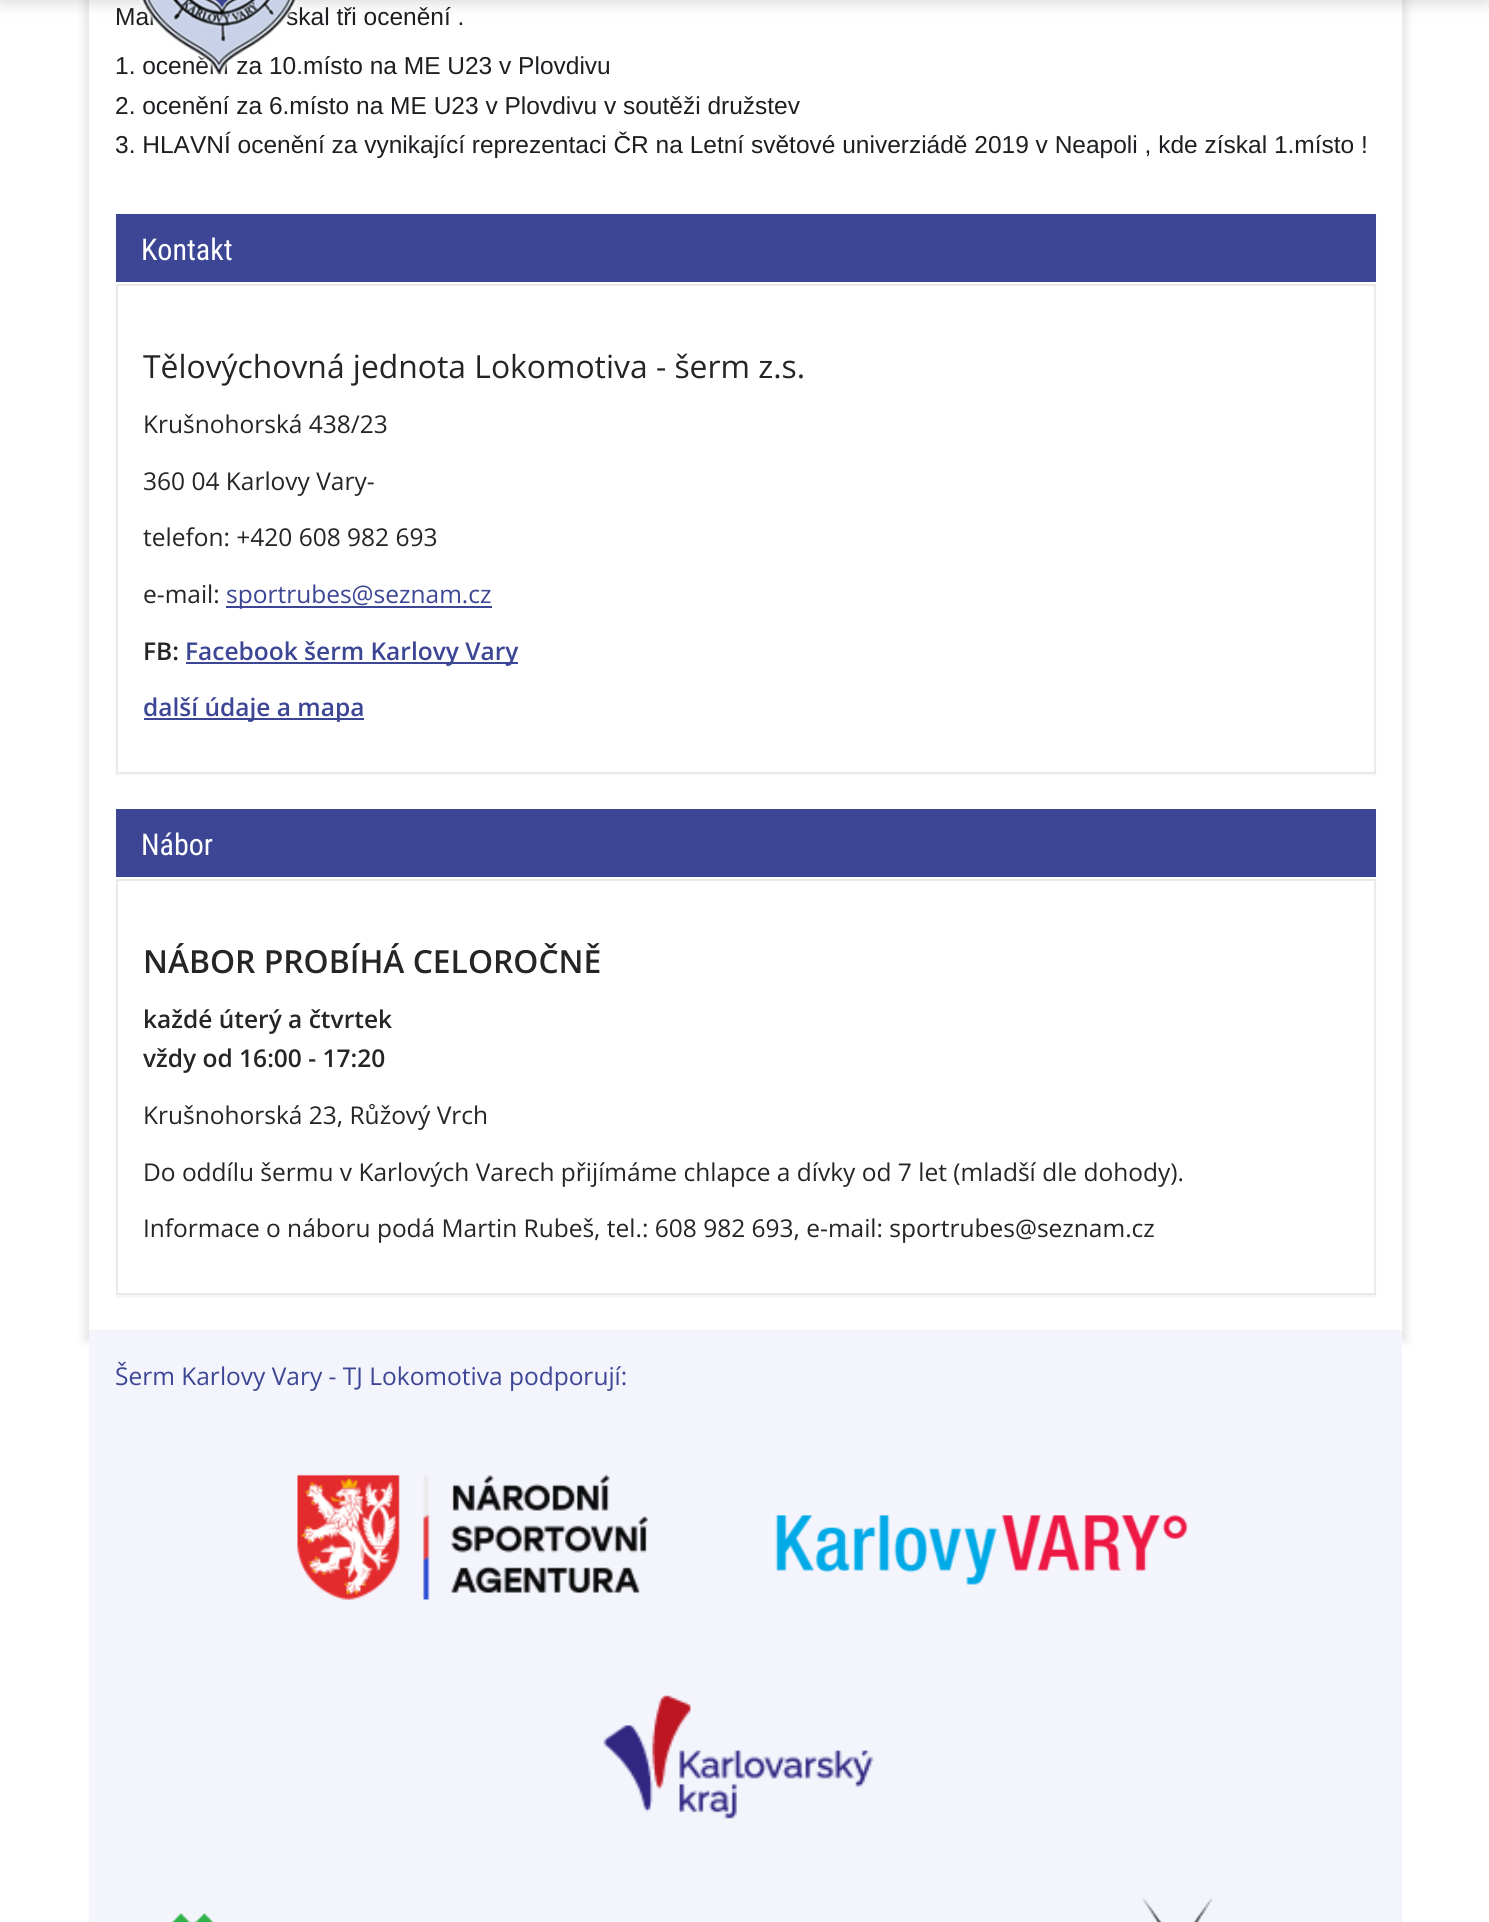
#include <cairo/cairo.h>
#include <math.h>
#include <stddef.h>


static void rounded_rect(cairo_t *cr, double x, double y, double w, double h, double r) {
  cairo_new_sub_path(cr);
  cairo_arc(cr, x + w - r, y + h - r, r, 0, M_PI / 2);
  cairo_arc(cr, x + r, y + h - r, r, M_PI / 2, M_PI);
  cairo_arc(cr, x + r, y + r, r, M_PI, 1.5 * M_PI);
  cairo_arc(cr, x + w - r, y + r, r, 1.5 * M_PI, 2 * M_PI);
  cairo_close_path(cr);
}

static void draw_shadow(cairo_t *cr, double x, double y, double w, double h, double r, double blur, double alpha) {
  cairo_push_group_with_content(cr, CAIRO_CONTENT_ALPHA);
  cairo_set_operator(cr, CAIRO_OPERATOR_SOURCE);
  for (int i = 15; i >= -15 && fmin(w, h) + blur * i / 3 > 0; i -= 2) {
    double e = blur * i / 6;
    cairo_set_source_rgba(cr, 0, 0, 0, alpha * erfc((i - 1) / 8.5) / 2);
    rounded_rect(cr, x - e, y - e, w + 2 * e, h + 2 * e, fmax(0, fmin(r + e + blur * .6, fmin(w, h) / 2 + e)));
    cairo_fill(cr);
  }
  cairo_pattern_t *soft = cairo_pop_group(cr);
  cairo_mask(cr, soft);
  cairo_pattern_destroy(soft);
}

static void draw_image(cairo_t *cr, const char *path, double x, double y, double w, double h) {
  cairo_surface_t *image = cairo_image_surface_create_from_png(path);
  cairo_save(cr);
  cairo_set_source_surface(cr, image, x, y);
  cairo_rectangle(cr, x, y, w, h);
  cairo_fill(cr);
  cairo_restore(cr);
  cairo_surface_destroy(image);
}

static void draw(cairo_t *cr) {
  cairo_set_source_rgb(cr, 1, 1, 1);
  cairo_paint(cr);
  cairo_set_source_rgb(cr, 0, 0, 0);
  draw_shadow(cr, 84, -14, 1323, 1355, 0, 4.5, 0.1);
  cairo_set_source_rgb(cr, 1, 1, 1);
  cairo_rectangle(cr, 89, 0, 1313, 1330);
  cairo_fill(cr);
  cairo_set_source_rgb(cr, 0, 0, 0);
  draw_shadow(cr, 0, -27, 1489, 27, 0, 9, 0.2);
  draw_shadow(cr, 116, 215, 1260, 560, 0, 1, 0.05);
  cairo_set_source_rgb(cr, 60 / 255.0, 70 / 255.0, 148 / 255.0);
  cairo_rectangle(cr, 116, 214, 1260, 68);
  cairo_fill(cr);
  cairo_set_source_rgb(cr, 1, 1, 1);
  cairo_rectangle(cr, 116, 282, 1260, 2);
  cairo_fill(cr);
  cairo_rectangle(cr, 117, 285, 1258, 488);
  cairo_fill_preserve(cr);
  cairo_set_source_rgb(cr, 234 / 255.0, 234 / 255.0, 234 / 255.0);
  cairo_stroke(cr);
  cairo_set_source_rgb(cr, 60 / 255.0, 70 / 255.0, 148 / 255.0);
  cairo_rectangle(cr, 226, 606, 266, 2);
  cairo_fill(cr);
  cairo_rectangle(cr, 186, 662, 332, 2);
  cairo_fill(cr);
  cairo_rectangle(cr, 144, 718, 220, 2);
  cairo_fill(cr);
  cairo_set_source_rgb(cr, 0, 0, 0);
  draw_shadow(cr, 116, 810, 1260, 487, 0, 1, 0.05);
  cairo_set_source_rgb(cr, 60 / 255.0, 70 / 255.0, 148 / 255.0);
  cairo_rectangle(cr, 116, 809, 1260, 68);
  cairo_fill(cr);
  cairo_set_source_rgb(cr, 1, 1, 1);
  cairo_rectangle(cr, 116, 877, 1260, 2);
  cairo_fill(cr);
  cairo_rectangle(cr, 117, 880, 1258, 414);
  cairo_fill_preserve(cr);
  cairo_set_source_rgb(cr, 234 / 255.0, 234 / 255.0, 234 / 255.0);
  cairo_stroke(cr);
  cairo_set_source_rgb(cr, 244 / 255.0, 244 / 255.0, 253 / 255.0);
  cairo_rectangle(cr, 89, 1330, 1313, 592);
  cairo_fill(cr);
  draw_image(cr, "images/2.png", 297, 1474, 351, 126);
  draw_image(cr, "images/3.png", 775, 1515, 413, 70);
  draw_image(cr, "images/4.png", 603, 1695, 271, 124);
  draw_image(cr, "images/5.png", 171, 1913, 43, 9);
  draw_image(cr, "images/6.png", 1142, 1897, 71, 25);
  cairo_select_font_face(cr, "Liberation Sans", CAIRO_FONT_SLANT_NORMAL, CAIRO_FONT_WEIGHT_NORMAL);
  cairo_set_font_size(cr, 24.5);
  cairo_set_source_rgb(cr, 28 / 255.0, 30 / 255.0, 33 / 255.0);
  cairo_move_to(cr, 115, 25);
  cairo_show_text(cr, "Mar");
  cairo_move_to(cr, 286, 25);
  cairo_show_text(cr, "skal tři ocenění .");
  cairo_move_to(cr, 115, 74);
  cairo_show_text(cr, "1. ocenění za 10.místo na ME U23 v Plovdivu");
  draw_image(cr, "images/1.png", 139, 0, 160, 75);
  cairo_move_to(cr, 115, 114);
  cairo_show_text(cr, "2. ocenění za 6.místo na ME U23 v Plovdivu v soutěži družstev");
  cairo_move_to(cr, 115, 153);
  cairo_show_text(cr, "3. HLAVNÍ ocenění za vynikající reprezentaci ČR na Letní světové univerziádě 2019 v Neapoli , kde získal 1.místo !");
  cairo_select_font_face(cr, "Roboto Condensed", CAIRO_FONT_SLANT_NORMAL, CAIRO_FONT_WEIGHT_NORMAL);
  cairo_set_font_size(cr, 30);
  cairo_set_source_rgb(cr, 1, 1, 1);
  cairo_move_to(cr, 141, 260);
  cairo_show_text(cr, "Kontakt");
  cairo_select_font_face(cr, "Open Sans", CAIRO_FONT_SLANT_NORMAL, CAIRO_FONT_WEIGHT_NORMAL);
  cairo_set_font_size(cr, 31.85);
  cairo_set_source_rgb(cr, 37 / 255.0, 37 / 255.0, 37 / 255.0);
  cairo_move_to(cr, 143, 378);
  cairo_show_text(cr, "Tělovýchovná jednota Lokomotiva - šerm z.s.");
  cairo_set_font_size(cr, 24.5);
  cairo_move_to(cr, 143, 433);
  cairo_show_text(cr, "Krušnohorská 438/23");
  cairo_move_to(cr, 143, 490);
  cairo_show_text(cr, "360 04 Karlovy Vary-");
  cairo_move_to(cr, 143, 546);
  cairo_show_text(cr, "telefon: +420 608 982 693");
  cairo_move_to(cr, 143, 603);
  cairo_show_text(cr, "e-mail:");
  cairo_set_source_rgb(cr, 60 / 255.0, 70 / 255.0, 148 / 255.0);
  cairo_move_to(cr, 226, 603);
  cairo_show_text(cr, "sportrubes@seznam.cz");
  cairo_select_font_face(cr, "Open Sans SemiBold", CAIRO_FONT_SLANT_NORMAL, CAIRO_FONT_WEIGHT_NORMAL);
  cairo_set_source_rgb(cr, 37 / 255.0, 37 / 255.0, 37 / 255.0);
  cairo_move_to(cr, 143, 660);
  cairo_show_text(cr, "FB:");
  cairo_set_source_rgb(cr, 60 / 255.0, 70 / 255.0, 148 / 255.0);
  cairo_move_to(cr, 185, 660);
  cairo_show_text(cr, "Facebook šerm Karlovy Vary");
  cairo_move_to(cr, 143, 716);
  cairo_show_text(cr, "další údaje a mapa");
  cairo_select_font_face(cr, "Roboto Condensed", CAIRO_FONT_SLANT_NORMAL, CAIRO_FONT_WEIGHT_NORMAL);
  cairo_set_font_size(cr, 30);
  cairo_set_source_rgb(cr, 1, 1, 1);
  cairo_move_to(cr, 141, 855);
  cairo_show_text(cr, "Nábor");
  cairo_select_font_face(cr, "Open Sans SemiBold", CAIRO_FONT_SLANT_NORMAL, CAIRO_FONT_WEIGHT_NORMAL);
  cairo_set_font_size(cr, 31.85);
  cairo_set_source_rgb(cr, 37 / 255.0, 37 / 255.0, 37 / 255.0);
  cairo_move_to(cr, 143, 973);
  cairo_show_text(cr, "NÁBOR PROBÍHÁ CELOROČNĚ");
  cairo_set_font_size(cr, 24.5);
  cairo_move_to(cr, 143, 1028);
  cairo_show_text(cr, "každé úterý a čtvrtek");
  cairo_move_to(cr, 143, 1067);
  cairo_show_text(cr, "vždy od 16:00 - 17:20");
  cairo_select_font_face(cr, "Open Sans", CAIRO_FONT_SLANT_NORMAL, CAIRO_FONT_WEIGHT_NORMAL);
  cairo_move_to(cr, 143, 1124);
  cairo_show_text(cr, "Krušnohorská 23, Růžový Vrch");
  cairo_move_to(cr, 143, 1181);
  cairo_show_text(cr, "Do oddílu šermu v Karlových Varech přijímáme chlapce a dívky od 7 let (mladší dle dohody).");
  cairo_move_to(cr, 143, 1237);
  cairo_show_text(cr, "Informace o náboru podá Martin Rubeš, tel.: 608 982 693, e-mail: sportrubes@seznam.cz");
  cairo_set_source_rgb(cr, 60 / 255.0, 70 / 255.0, 148 / 255.0);
  cairo_move_to(cr, 115, 1385);
  cairo_show_text(cr, "Šerm Karlovy Vary - TJ Lokomotiva podporují:");
}

int main(void) {
  cairo_surface_t *surface = cairo_image_surface_create(CAIRO_FORMAT_RGB24, 1489, 1922);
  cairo_t *cr = cairo_create(surface);
  cairo_font_options_t *options = cairo_font_options_create();
  cairo_font_options_set_hint_metrics(options, CAIRO_HINT_METRICS_OFF);
  cairo_font_options_set_hint_style(options, CAIRO_HINT_STYLE_NONE);
  cairo_set_font_options(cr, options);
  cairo_set_miter_limit(cr, 4);
  draw(cr);
  cairo_surface_write_to_png(surface, "out.png");
  cairo_font_options_destroy(options);
  cairo_destroy(cr);
  cairo_surface_destroy(surface);
  return 0;
}
